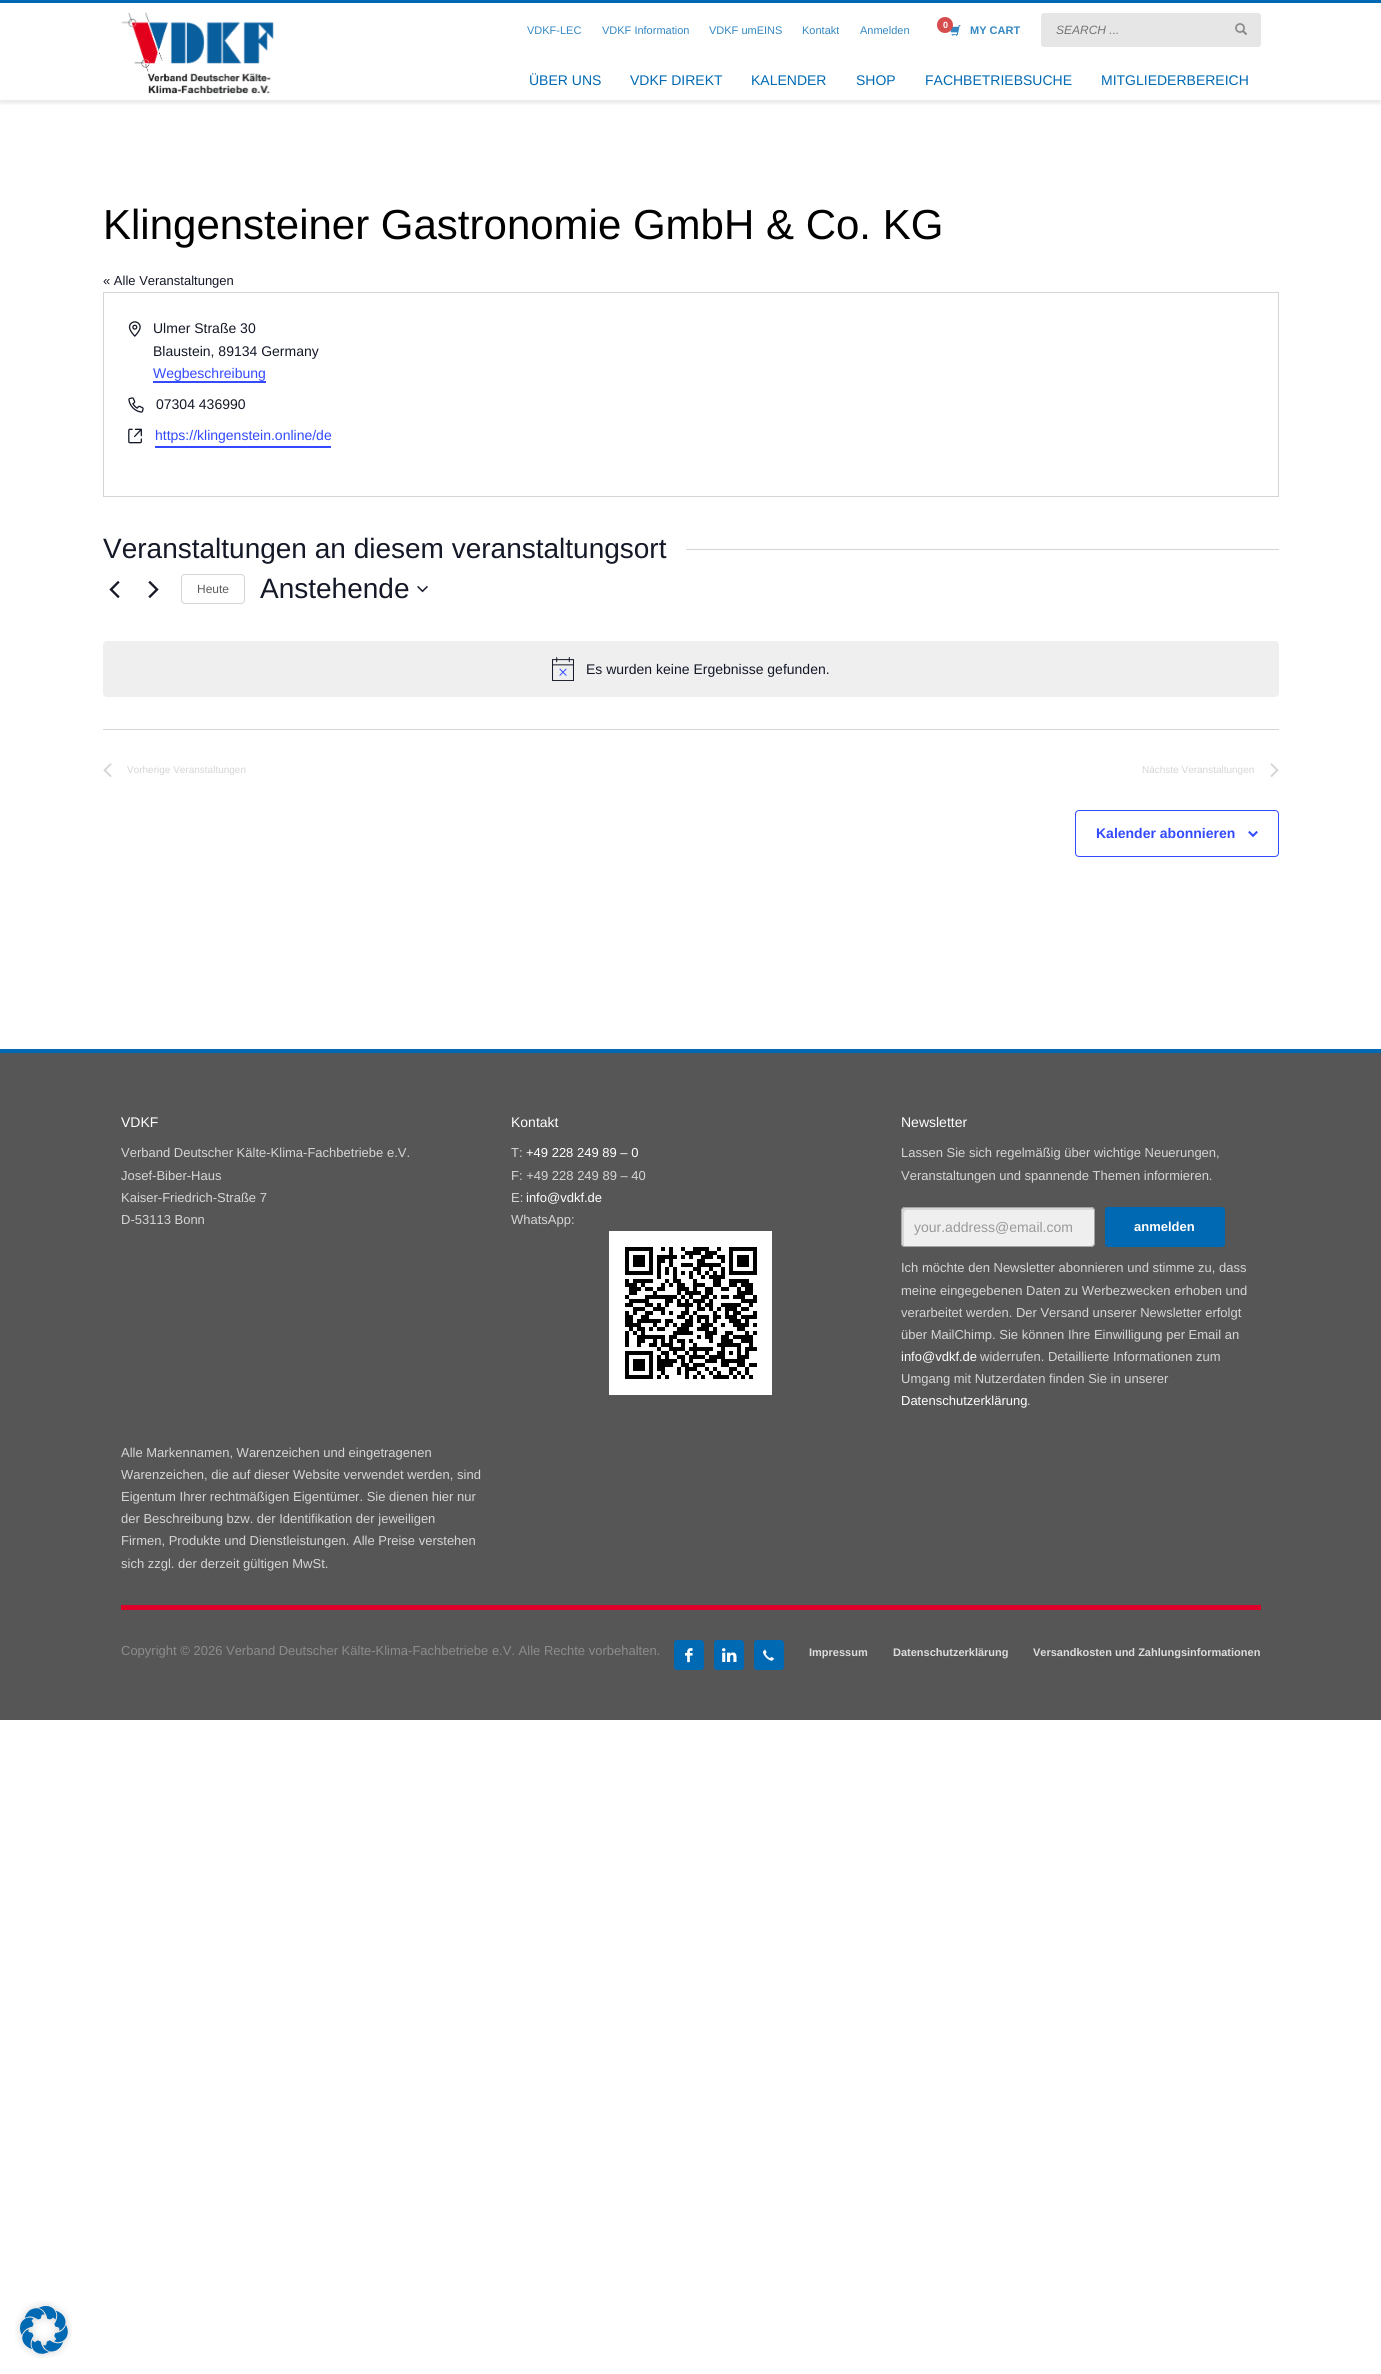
#include <cairo/cairo.h>
#include <math.h>
#include <stddef.h>


static void rounded_rect(cairo_t *cr, double x, double y, double w, double h, double r) {
  cairo_new_sub_path(cr);
  cairo_arc(cr, x + w - r, y + h - r, r, 0, M_PI / 2);
  cairo_arc(cr, x + r, y + h - r, r, M_PI / 2, M_PI);
  cairo_arc(cr, x + r, y + r, r, M_PI, 1.5 * M_PI);
  cairo_arc(cr, x + w - r, y + r, r, 1.5 * M_PI, 2 * M_PI);
  cairo_close_path(cr);
}

static void draw_shadow(cairo_t *cr, double x, double y, double w, double h, double r, double blur, double alpha) {
  cairo_push_group_with_content(cr, CAIRO_CONTENT_ALPHA);
  cairo_set_operator(cr, CAIRO_OPERATOR_SOURCE);
  for (int i = 15; i >= -15 && fmin(w, h) + blur * i / 3 > 0; i -= 2) {
    double e = blur * i / 6;
    cairo_set_source_rgba(cr, 0, 0, 0, alpha * erfc((i - 1) / 8.5) / 2);
    rounded_rect(cr, x - e, y - e, w + 2 * e, h + 2 * e, fmax(0, fmin(r + e + blur * .6, fmin(w, h) / 2 + e)));
    cairo_fill(cr);
  }
  cairo_pattern_t *soft = cairo_pop_group(cr);
  cairo_mask(cr, soft);
  cairo_pattern_destroy(soft);
}

static void draw_image(cairo_t *cr, const char *path, double x, double y, double w, double h) {
  cairo_surface_t *image = cairo_image_surface_create_from_png(path);
  cairo_save(cr);
  cairo_set_source_surface(cr, image, x, y);
  cairo_rectangle(cr, x, y, w, h);
  cairo_fill(cr);
  cairo_restore(cr);
  cairo_surface_destroy(image);
}

static void draw(cairo_t *cr) {
  cairo_set_source_rgb(cr, 1, 1, 1);
  cairo_paint(cr);
  cairo_save(cr);
  cairo_rectangle(cr, 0, 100, 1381, 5);
  cairo_clip(cr);
  cairo_set_source_rgb(cr, 0, 0, 0);
  draw_shadow(cr, 0, 3, 1381, 100, 0, 2.5, 0.1);
  cairo_restore(cr);
  cairo_set_source_rgb(cr, 0, 105 / 255.0, 179 / 255.0);
  cairo_rectangle(cr, 0, 0, 1381, 3);
  cairo_fill(cr);
  draw_image(cr, "images/1.png", 121, 12, 153, 82);
  draw_image(cr, "images/2.png", 950, 25, 11, 11);
  cairo_set_source_rgb(cr, 215 / 255.0, 77 / 255.0, 78 / 255.0);
  cairo_arc(cr, 945, 25, 8, 0, 2 * M_PI);
  cairo_fill(cr);
  cairo_set_source_rgb(cr, 230 / 255.0, 230 / 255.0, 230 / 255.0);
  rounded_rect(cr, 1041, 13, 220, 34, 3);
  cairo_fill(cr);
  draw_image(cr, "images/3.png", 1235, 23, 12, 12);
  cairo_rectangle(cr, 103.5, 292.5, 1175, 204);
  cairo_set_source_rgb(cr, 213 / 255.0, 213 / 255.0, 213 / 255.0);
  cairo_set_line_width(cr, 1);
  cairo_stroke(cr);
  draw_image(cr, "images/4.png", 128, 321, 13, 16);
  cairo_set_source_rgb(cr, 51 / 255.0, 74 / 255.0, 1);
  cairo_rectangle(cr, 153, 381, 113, 2);
  cairo_fill(cr);
  draw_image(cr, "images/5.png", 128, 397, 16, 16);
  draw_image(cr, "images/6.png", 128, 428, 14, 16);
  cairo_rectangle(cr, 155, 446, 176, 2);
  cairo_fill(cr);
  cairo_set_source_rgb(cr, 213 / 255.0, 213 / 255.0, 213 / 255.0);
  cairo_rectangle(cr, 686, 549, 593, 1);
  cairo_fill(cr);
  draw_image(cr, "images/7.png", 109, 580, 11, 19);
  draw_image(cr, "images/8.png", 148, 580, 11, 19);
  rounded_rect(cr, 181.5, 574.5, 63, 29, 3.5);
  cairo_stroke(cr);
  draw_image(cr, "images/9.png", 417, 585, 11, 8);
  cairo_set_source_rgb(cr, 239 / 255.0, 239 / 255.0, 240 / 255.0);
  rounded_rect(cr, 103, 641, 1176, 56, 4);
  cairo_fill(cr);
  draw_image(cr, "images/10.png", 552, 657, 22, 24);
  cairo_set_source_rgb(cr, 213 / 255.0, 213 / 255.0, 213 / 255.0);
  cairo_rectangle(cr, 103, 729, 1176, 1);
  cairo_fill(cr);
  draw_image(cr, "images/11.png", 103, 763, 9, 14);
  draw_image(cr, "images/12.png", 1270, 763, 9, 14);
  rounded_rect(cr, 1075.5, 810.5, 203, 46, 3.5);
  cairo_set_source_rgb(cr, 51 / 255.0, 74 / 255.0, 1);
  cairo_stroke(cr);
  draw_image(cr, "images/13.png", 1248, 831, 10, 6);
  cairo_set_source_rgb(cr, 86 / 255.0, 86 / 255.0, 86 / 255.0);
  cairo_rectangle(cr, 0, 1053, 1381, 667);
  cairo_fill(cr);
  cairo_set_source_rgb(cr, 0, 105 / 255.0, 179 / 255.0);
  cairo_rectangle(cr, 0, 1049, 1381, 4);
  cairo_fill(cr);
  draw_image(cr, "images/14.png", 609, 1231, 163, 164);
  cairo_set_source_rgb(cr, 239 / 255.0, 239 / 255.0, 239 / 255.0);
  rounded_rect(cr, 901, 1207, 194, 40, 4);
  cairo_fill(cr);
  cairo_set_source_rgb(cr, 215 / 255.0, 215 / 255.0, 215 / 255.0);
  cairo_new_path(cr);
  cairo_move_to(cr, 907, 1210);
  cairo_line_to(cr, 1094, 1210);
  cairo_curve_to(cr, 1093, 1209, 1092, 1208, 1091, 1208);
  cairo_line_to(cr, 905, 1208);
  cairo_curve_to(cr, 903, 1208, 902, 1209, 902, 1211);
  cairo_line_to(cr, 902, 1243);
  cairo_curve_to(cr, 902, 1244, 903, 1245, 904, 1246);
  cairo_line_to(cr, 904, 1218);
  cairo_curve_to(cr, 904, 1216, 903, 1210, 907, 1210);
  cairo_close_path(cr);
  cairo_fill(cr);
  rounded_rect(cr, 901.5, 1207.5, 193, 39, 3.5);
  cairo_set_source_rgb(cr, 163 / 255.0, 163 / 255.0, 163 / 255.0);
  cairo_stroke(cr);
  cairo_set_source_rgb(cr, 0, 105 / 255.0, 179 / 255.0);
  rounded_rect(cr, 1105, 1207, 120, 40, 3);
  cairo_fill(cr);
  cairo_set_source_rgb(cr, 223 / 255.0, 0, 41 / 255.0);
  cairo_rectangle(cr, 121, 1605, 1140, 5);
  cairo_fill(cr);
  cairo_set_source_rgb(cr, 0, 105 / 255.0, 179 / 255.0);
  rounded_rect(cr, 674, 1640, 30, 30, 3);
  cairo_fill(cr);
  draw_image(cr, "images/15.png", 685, 1648, 8, 15);
  rounded_rect(cr, 714, 1640, 30, 30, 3);
  cairo_fill(cr);
  draw_image(cr, "images/16.png", 722, 1648, 15, 14);
  rounded_rect(cr, 754, 1640, 30, 30, 3);
  cairo_fill(cr);
  draw_image(cr, "images/17.png", 763, 1649, 12, 12);
  draw_image(cr, "images/18.png", 15, 2301, 57, 57);
  cairo_select_font_face(cr, "Liberation Sans", CAIRO_FONT_SLANT_NORMAL, CAIRO_FONT_WEIGHT_NORMAL);
  cairo_set_font_size(cr, 11);
  cairo_set_source_rgb(cr, 51 / 255.0, 135 / 255.0, 194 / 255.0);
  cairo_move_to(cr, 527, 34);
  cairo_show_text(cr, "VDKF-LEC");
  cairo_move_to(cr, 602, 34);
  cairo_show_text(cr, "VDKF Information");
  cairo_move_to(cr, 709, 34);
  cairo_show_text(cr, "VDKF umEINS");
  cairo_move_to(cr, 802, 34);
  cairo_show_text(cr, "Kontakt");
  cairo_move_to(cr, 860, 34);
  cairo_show_text(cr, "Anmelden");
  cairo_select_font_face(cr, "Liberation Sans", CAIRO_FONT_SLANT_NORMAL, CAIRO_FONT_WEIGHT_BOLD);
  cairo_set_font_size(cr, 9);
  cairo_set_source_rgb(cr, 1, 1, 1);
  cairo_move_to(cr, 943, 28);
  cairo_show_text(cr, "0");
  cairo_set_font_size(cr, 11);
  cairo_set_source_rgb(cr, 51 / 255.0, 135 / 255.0, 194 / 255.0);
  cairo_move_to(cr, 970, 34);
  cairo_show_text(cr, "MY CART");
  cairo_select_font_face(cr, "Liberation Sans", CAIRO_FONT_SLANT_ITALIC, CAIRO_FONT_WEIGHT_NORMAL);
  cairo_set_font_size(cr, 12);
  cairo_set_source_rgb(cr, 117 / 255.0, 117 / 255.0, 117 / 255.0);
  cairo_move_to(cr, 1056, 34);
  cairo_show_text(cr, "SEARCH ...");
  cairo_select_font_face(cr, "Liberation Sans", CAIRO_FONT_SLANT_NORMAL, CAIRO_FONT_WEIGHT_NORMAL);
  cairo_set_font_size(cr, 14);
  cairo_set_source_rgb(cr, 0, 105 / 255.0, 179 / 255.0);
  cairo_move_to(cr, 529, 85);
  cairo_show_text(cr, "ÜBER UNS");
  cairo_move_to(cr, 630, 85);
  cairo_show_text(cr, "VDKF DIREKT");
  cairo_move_to(cr, 751, 85);
  cairo_show_text(cr, "KALENDER");
  cairo_move_to(cr, 856, 85);
  cairo_show_text(cr, "SHOP");
  cairo_move_to(cr, 925, 85);
  cairo_show_text(cr, "FACHBETRIEBSUCHE");
  cairo_move_to(cr, 1101, 85);
  cairo_show_text(cr, "MITGLIEDERBEREICH");
  cairo_set_font_size(cr, 42);
  cairo_set_source_rgb(cr, 0, 0, 0);
  cairo_move_to(cr, 103, 239);
  cairo_show_text(cr, "Klingensteiner Gastronomie GmbH & Co. KG");
  cairo_set_font_size(cr, 13);
  cairo_set_source_rgb(cr, 20 / 255.0, 24 / 255.0, 39 / 255.0);
  cairo_move_to(cr, 103, 285);
  cairo_show_text(cr, "« Alle Veranstaltungen");
  cairo_set_font_size(cr, 14);
  cairo_move_to(cr, 153, 333);
  cairo_show_text(cr, "Ulmer Straße 30");
  cairo_move_to(cr, 153, 356);
  cairo_show_text(cr, "Blaustein, 89134 Germany");
  cairo_set_source_rgb(cr, 51 / 255.0, 74 / 255.0, 1);
  cairo_move_to(cr, 153, 378);
  cairo_show_text(cr, "Wegbeschreibung");
  cairo_set_source_rgb(cr, 20 / 255.0, 24 / 255.0, 39 / 255.0);
  cairo_move_to(cr, 156, 409);
  cairo_show_text(cr, "07304 436990");
  cairo_set_source_rgb(cr, 51 / 255.0, 74 / 255.0, 1);
  cairo_move_to(cr, 155, 440);
  cairo_show_text(cr, "https://klingenstein.online/de");
  cairo_set_font_size(cr, 28);
  cairo_set_source_rgb(cr, 20 / 255.0, 24 / 255.0, 39 / 255.0);
  cairo_move_to(cr, 103, 558);
  cairo_show_text(cr, "Veranstaltungen an diesem veranstaltungsort");
  cairo_set_font_size(cr, 12);
  cairo_set_source_rgb(cr, 93 / 255.0, 93 / 255.0, 93 / 255.0);
  cairo_move_to(cr, 197, 593);
  cairo_show_text(cr, "Heute");
  cairo_set_font_size(cr, 28);
  cairo_set_source_rgb(cr, 20 / 255.0, 24 / 255.0, 39 / 255.0);
  cairo_move_to(cr, 260, 598);
  cairo_show_text(cr, "Anstehende");
  cairo_set_font_size(cr, 14);
  cairo_move_to(cr, 586, 674);
  cairo_show_text(cr, "Es wurden keine Ergebnisse gefunden.");
  cairo_set_font_size(cr, 10);
  cairo_set_source_rgb(cr, 213 / 255.0, 213 / 255.0, 213 / 255.0);
  cairo_move_to(cr, 127, 773);
  cairo_show_text(cr, "Vorherige Veranstaltungen");
  cairo_move_to(cr, 1142, 773);
  cairo_show_text(cr, "Nächste Veranstaltungen");
  cairo_select_font_face(cr, "Liberation Sans", CAIRO_FONT_SLANT_NORMAL, CAIRO_FONT_WEIGHT_BOLD);
  cairo_set_font_size(cr, 14);
  cairo_set_source_rgb(cr, 51 / 255.0, 74 / 255.0, 1);
  cairo_move_to(cr, 1096, 838);
  cairo_show_text(cr, "Kalender abonnieren");
  cairo_select_font_face(cr, "Liberation Sans", CAIRO_FONT_SLANT_NORMAL, CAIRO_FONT_WEIGHT_NORMAL);
  cairo_set_source_rgb(cr, 1, 1, 1);
  cairo_move_to(cr, 121, 1127);
  cairo_show_text(cr, "VDKF");
  cairo_set_font_size(cr, 13);
  cairo_set_source_rgb(cr, 213 / 255.0, 213 / 255.0, 213 / 255.0);
  cairo_move_to(cr, 121, 1157);
  cairo_show_text(cr, "Verband Deutscher Kälte-Klima-Fachbetriebe e.V.");
  cairo_move_to(cr, 121, 1180);
  cairo_show_text(cr, "Josef-Biber-Haus");
  cairo_move_to(cr, 121, 1202);
  cairo_show_text(cr, "Kaiser-Friedrich-Straße 7");
  cairo_move_to(cr, 121, 1224);
  cairo_show_text(cr, "D-53113 Bonn");
  cairo_set_font_size(cr, 14);
  cairo_set_source_rgb(cr, 1, 1, 1);
  cairo_move_to(cr, 511, 1127);
  cairo_show_text(cr, "Kontakt");
  cairo_set_font_size(cr, 13);
  cairo_set_source_rgb(cr, 213 / 255.0, 213 / 255.0, 213 / 255.0);
  cairo_move_to(cr, 511, 1157);
  cairo_show_text(cr, "T:");
  cairo_set_source_rgb(cr, 1, 1, 1);
  cairo_move_to(cr, 526, 1157);
  cairo_show_text(cr, "+49 228 249 89 – 0");
  cairo_set_source_rgb(cr, 213 / 255.0, 213 / 255.0, 213 / 255.0);
  cairo_move_to(cr, 511, 1180);
  cairo_show_text(cr, "F: +49 228 249 89 – 40");
  cairo_move_to(cr, 511, 1202);
  cairo_show_text(cr, "E:");
  cairo_set_source_rgb(cr, 1, 1, 1);
  cairo_move_to(cr, 526, 1202);
  cairo_show_text(cr, "info@vdkf.de");
  cairo_set_source_rgb(cr, 213 / 255.0, 213 / 255.0, 213 / 255.0);
  cairo_move_to(cr, 511, 1224);
  cairo_show_text(cr, "WhatsApp:");
  cairo_set_font_size(cr, 14);
  cairo_set_source_rgb(cr, 1, 1, 1);
  cairo_move_to(cr, 901, 1127);
  cairo_show_text(cr, "Newsletter");
  cairo_set_font_size(cr, 13);
  cairo_set_source_rgb(cr, 213 / 255.0, 213 / 255.0, 213 / 255.0);
  cairo_move_to(cr, 901, 1157);
  cairo_show_text(cr, "Lassen Sie sich regelmäßig über wichtige Neuerungen,");
  cairo_move_to(cr, 901, 1180);
  cairo_show_text(cr, "Veranstaltungen und spannende Themen informieren.");
  cairo_set_font_size(cr, 14);
  cairo_set_source_rgb(cr, 153 / 255.0, 153 / 255.0, 153 / 255.0);
  cairo_move_to(cr, 914, 1232);
  cairo_show_text(cr, "your.address@email.com");
  cairo_select_font_face(cr, "Liberation Sans", CAIRO_FONT_SLANT_NORMAL, CAIRO_FONT_WEIGHT_BOLD);
  cairo_set_font_size(cr, 13);
  cairo_set_source_rgb(cr, 1, 1, 1);
  cairo_move_to(cr, 1134, 1231);
  cairo_show_text(cr, "anmelden");
  cairo_select_font_face(cr, "Liberation Sans", CAIRO_FONT_SLANT_NORMAL, CAIRO_FONT_WEIGHT_NORMAL);
  cairo_set_source_rgb(cr, 213 / 255.0, 213 / 255.0, 213 / 255.0);
  cairo_move_to(cr, 901, 1272);
  cairo_show_text(cr, "Ich möchte den Newsletter abonnieren und stimme zu, dass");
  cairo_move_to(cr, 901, 1295);
  cairo_show_text(cr, "meine eingegebenen Daten zu Werbezwecken erhoben und");
  cairo_move_to(cr, 901, 1317);
  cairo_show_text(cr, "verarbeitet werden. Der Versand unserer Newsletter erfolgt");
  cairo_move_to(cr, 901, 1339);
  cairo_show_text(cr, "über MailChimp. Sie können Ihre Einwilligung per Email an");
  cairo_set_source_rgb(cr, 1, 1, 1);
  cairo_move_to(cr, 901, 1361);
  cairo_show_text(cr, "info@vdkf.de");
  cairo_set_source_rgb(cr, 213 / 255.0, 213 / 255.0, 213 / 255.0);
  cairo_move_to(cr, 980, 1361);
  cairo_show_text(cr, "widerrufen. Detaillierte Informationen zum");
  cairo_move_to(cr, 901, 1383);
  cairo_show_text(cr, "Umgang mit Nutzerdaten finden Sie in unserer");
  cairo_set_source_rgb(cr, 1, 1, 1);
  cairo_move_to(cr, 901, 1405);
  cairo_show_text(cr, "Datenschutzerklärung");
  cairo_set_source_rgb(cr, 213 / 255.0, 213 / 255.0, 213 / 255.0);
  cairo_move_to(cr, 1027, 1405);
  cairo_show_text(cr, ".");
  cairo_move_to(cr, 121, 1457);
  cairo_show_text(cr, "Alle Markennamen, Warenzeichen und eingetragenen");
  cairo_move_to(cr, 121, 1479);
  cairo_show_text(cr, "Warenzeichen, die auf dieser Website verwendet werden, sind");
  cairo_move_to(cr, 121, 1501);
  cairo_show_text(cr, "Eigentum Ihrer rechtmäßigen Eigentümer. Sie dienen hier nur");
  cairo_move_to(cr, 121, 1523);
  cairo_show_text(cr, "der Beschreibung bzw. der Identifikation der jeweiligen");
  cairo_move_to(cr, 121, 1545);
  cairo_show_text(cr, "Firmen, Produkte und Dienstleistungen. Alle Preise verstehen");
  cairo_move_to(cr, 121, 1568);
  cairo_show_text(cr, "sich zzgl. der derzeit gültigen MwSt.");
  cairo_set_source_rgb(cr, 139 / 255.0, 140 / 255.0, 141 / 255.0);
  cairo_move_to(cr, 121, 1655);
  cairo_show_text(cr, "Copyright © 2026 Verband Deutscher Kälte-Klima-Fachbetriebe e.V. Alle Rechte vorbehalten.");
  cairo_select_font_face(cr, "Liberation Sans", CAIRO_FONT_SLANT_NORMAL, CAIRO_FONT_WEIGHT_BOLD);
  cairo_set_font_size(cr, 11);
  cairo_set_source_rgb(cr, 221 / 255.0, 221 / 255.0, 221 / 255.0);
  cairo_move_to(cr, 809, 1656);
  cairo_show_text(cr, "Impressum");
  cairo_move_to(cr, 893, 1656);
  cairo_show_text(cr, "Datenschutzerklärung");
  cairo_move_to(cr, 1033, 1656);
  cairo_show_text(cr, "Versandkosten und Zahlungsinformationen");
}

int main(void) {
  cairo_surface_t *surface = cairo_image_surface_create(CAIRO_FORMAT_RGB24, 1381, 2374);
  cairo_t *cr = cairo_create(surface);
  cairo_font_options_t *options = cairo_font_options_create();
  cairo_font_options_set_hint_metrics(options, CAIRO_HINT_METRICS_OFF);
  cairo_font_options_set_hint_style(options, CAIRO_HINT_STYLE_NONE);
  cairo_set_font_options(cr, options);
  cairo_set_miter_limit(cr, 4);
  draw(cr);
  cairo_surface_write_to_png(surface, "out.png");
  cairo_font_options_destroy(options);
  cairo_destroy(cr);
  cairo_surface_destroy(surface);
  return 0;
}
